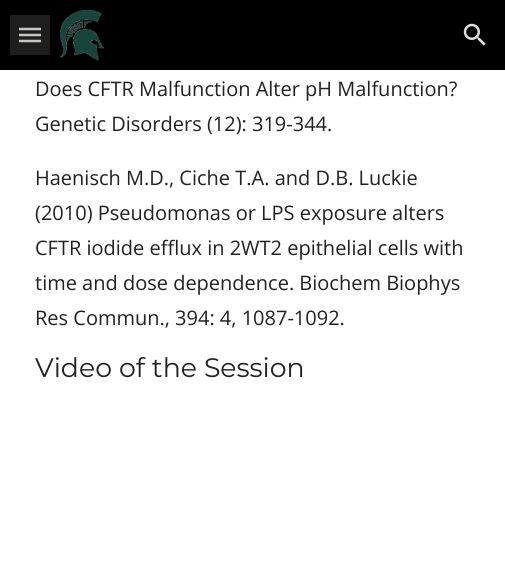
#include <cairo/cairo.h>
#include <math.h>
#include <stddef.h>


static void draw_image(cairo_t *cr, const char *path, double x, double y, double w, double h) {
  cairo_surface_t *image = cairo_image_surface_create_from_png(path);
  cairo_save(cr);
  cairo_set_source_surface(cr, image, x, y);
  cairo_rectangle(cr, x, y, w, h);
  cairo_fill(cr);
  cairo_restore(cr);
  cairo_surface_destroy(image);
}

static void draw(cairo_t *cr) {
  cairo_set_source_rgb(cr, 1, 1, 1);
  cairo_paint(cr);
  cairo_set_source_rgb(cr, 0, 0, 0);
  cairo_rectangle(cr, 0, 0, 505, 70);
  cairo_fill(cr);
  draw_image(cr, "images/1.png", 60, 10, 44, 51);
  draw_image(cr, "images/2.png", 463, 23, 23, 23);
  cairo_new_path(cr);
  cairo_move_to(cr, 19, 29);
  cairo_line_to(cr, 41, 29);
  cairo_move_to(cr, 19, 35);
  cairo_line_to(cr, 41, 35);
  cairo_move_to(cr, 19, 41);
  cairo_line_to(cr, 41, 41);
  cairo_set_source_rgb(cr, 192 / 255.0, 189 / 255.0, 184 / 255.0);
  cairo_set_line_width(cr, 2.5);
  cairo_stroke(cr);
  cairo_set_source_rgba(cr, 1, 1, 1, 0.12);
  cairo_rectangle(cr, 10, 15, 40, 40);
  cairo_fill(cr);
  cairo_select_font_face(cr, "Open Sans", CAIRO_FONT_SLANT_NORMAL, CAIRO_FONT_WEIGHT_NORMAL);
  cairo_set_font_size(cr, 20);
  cairo_set_source_rgb(cr, 33 / 255.0, 33 / 255.0, 33 / 255.0);
  cairo_move_to(cr, 35, 96);
  cairo_show_text(cr, "Does CFTR Malfunction Alter pH Malfunction?");
  cairo_move_to(cr, 35, 131);
  cairo_show_text(cr, "Genetic Disorders (12): 319-344.");
  cairo_move_to(cr, 35, 185);
  cairo_show_text(cr, "Haenisch M.D., Ciche T.A. and D.B. Luckie");
  cairo_move_to(cr, 35, 220);
  cairo_show_text(cr, "(2010) Pseudomonas or LPS exposure alters");
  cairo_move_to(cr, 35, 255);
  cairo_show_text(cr, "CFTR iodide efflux in 2WT2 epithelial cells with");
  cairo_move_to(cr, 35, 290);
  cairo_show_text(cr, "time and dose dependence. Biochem Biophys");
  cairo_move_to(cr, 35, 325);
  cairo_show_text(cr, "Res Commun., 394: 4, 1087-1092.");
  cairo_select_font_face(cr, "Montserrat", CAIRO_FONT_SLANT_NORMAL, CAIRO_FONT_WEIGHT_NORMAL);
  cairo_set_font_size(cr, 26.75);
  cairo_move_to(cr, 35, 377);
  cairo_show_text(cr, "Video of the Session");
}

int main(void) {
  cairo_surface_t *surface = cairo_image_surface_create(CAIRO_FORMAT_RGB24, 505, 581);
  cairo_t *cr = cairo_create(surface);
  cairo_font_options_t *options = cairo_font_options_create();
  cairo_font_options_set_hint_metrics(options, CAIRO_HINT_METRICS_OFF);
  cairo_font_options_set_hint_style(options, CAIRO_HINT_STYLE_NONE);
  cairo_set_font_options(cr, options);
  cairo_set_miter_limit(cr, 4);
  draw(cr);
  cairo_surface_write_to_png(surface, "out.png");
  cairo_font_options_destroy(options);
  cairo_destroy(cr);
  cairo_surface_destroy(surface);
  return 0;
}
